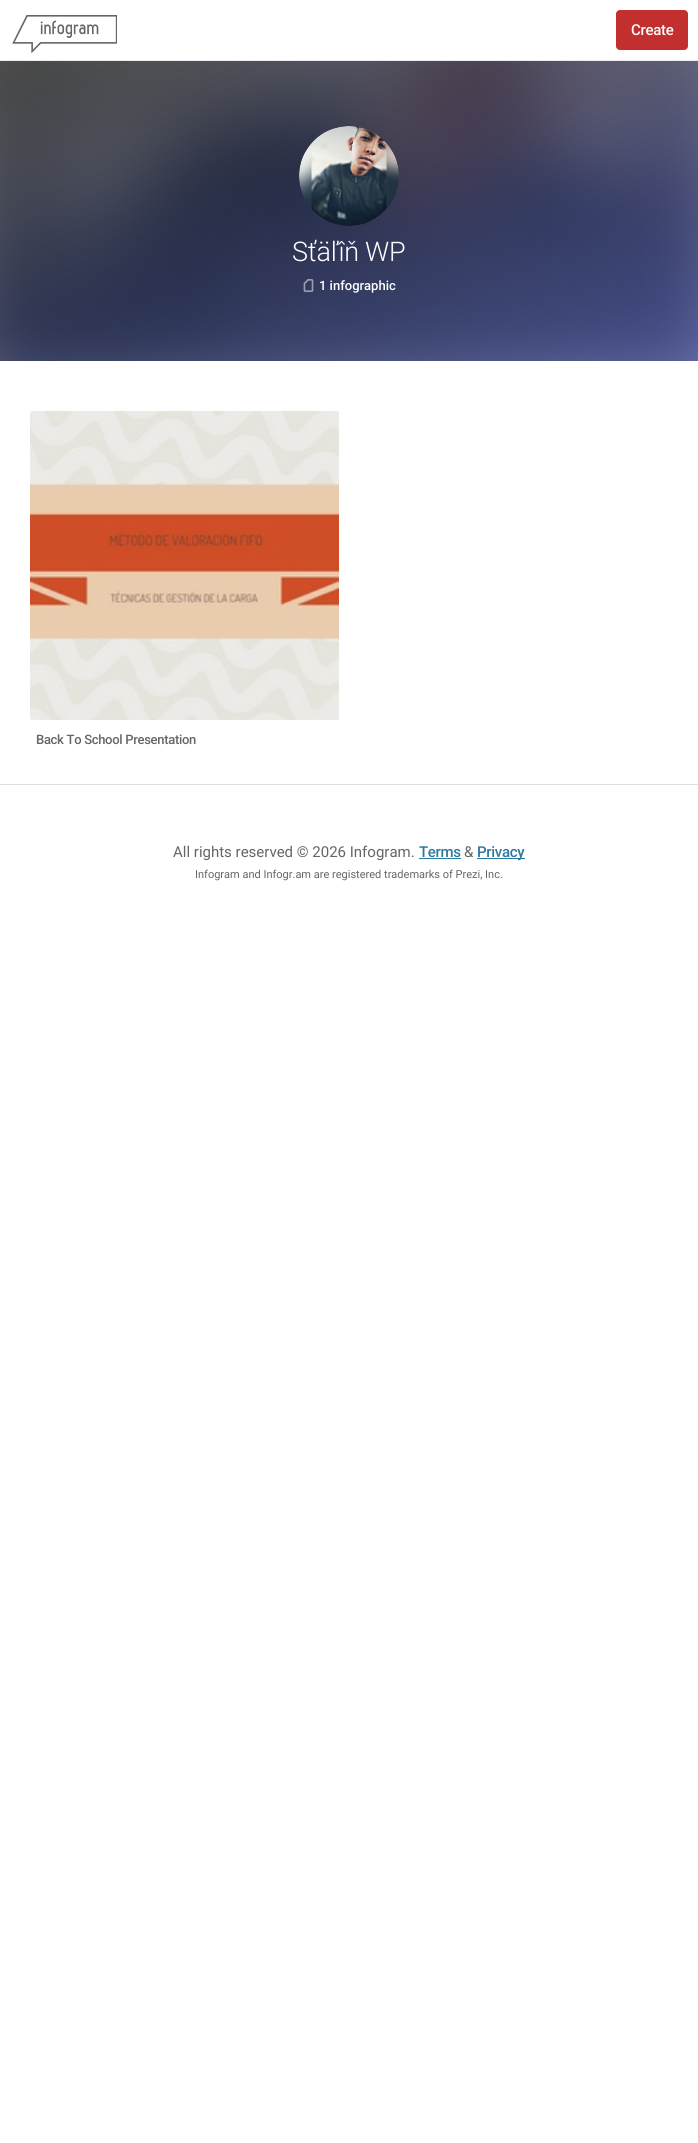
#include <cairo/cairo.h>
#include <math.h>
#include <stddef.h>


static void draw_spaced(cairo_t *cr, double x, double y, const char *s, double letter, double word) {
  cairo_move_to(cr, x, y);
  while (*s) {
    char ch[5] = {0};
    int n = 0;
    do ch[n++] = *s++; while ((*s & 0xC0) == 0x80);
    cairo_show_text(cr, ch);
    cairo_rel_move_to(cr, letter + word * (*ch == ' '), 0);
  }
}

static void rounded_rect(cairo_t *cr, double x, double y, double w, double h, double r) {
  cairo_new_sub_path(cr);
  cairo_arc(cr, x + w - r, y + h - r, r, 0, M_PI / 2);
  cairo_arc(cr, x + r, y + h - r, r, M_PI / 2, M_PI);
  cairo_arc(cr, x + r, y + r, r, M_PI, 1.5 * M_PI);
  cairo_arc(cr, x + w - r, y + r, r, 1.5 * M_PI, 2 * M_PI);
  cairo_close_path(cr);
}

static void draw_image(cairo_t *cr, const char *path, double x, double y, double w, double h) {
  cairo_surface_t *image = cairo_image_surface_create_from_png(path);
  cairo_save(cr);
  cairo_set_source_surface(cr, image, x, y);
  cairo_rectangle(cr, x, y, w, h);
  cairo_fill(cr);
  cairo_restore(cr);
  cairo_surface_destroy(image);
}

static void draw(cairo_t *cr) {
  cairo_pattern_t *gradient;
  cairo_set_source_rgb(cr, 1, 1, 1);
  cairo_paint(cr);
  cairo_set_source_rgb(cr, 236 / 255.0, 236 / 255.0, 240 / 255.0);
  cairo_rectangle(cr, 0, 60, 698, 1);
  cairo_fill(cr);
  draw_image(cr, "images/1.png", 12, 15, 105, 39);
  cairo_set_source_rgb(cr, 195 / 255.0, 47 / 255.0, 47 / 255.0);
  rounded_rect(cr, 616, 10, 72, 40, 4);
  cairo_fill(cr);
  draw_image(cr, "images/2.png", 0, 61, 698, 300);
  gradient = cairo_pattern_create_linear(240, -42, 458, 464);
  cairo_pattern_add_color_stop_rgba(gradient, 0, 1 / 255.0, 1 / 255.0, 1 / 255.0, 0.6);
  cairo_pattern_add_color_stop_rgba(gradient, 1, 102 / 255.0, 109 / 255.0, 199 / 255.0, 0.6);
  cairo_set_source(cr, gradient);
  cairo_pattern_destroy(gradient);
  cairo_rectangle(cr, 0, 61, 698, 300);
  cairo_fill(cr);
  draw_image(cr, "images/3.png", 299, 126, 100, 100);
  draw_image(cr, "images/4.png", 303, 279, 11, 13);
  draw_image(cr, "images/5.png", 30, 411, 309, 309);
  cairo_set_source_rgba(cr, 0, 0, 0, 0.04);
  cairo_rectangle(cr, 30, 411, 309, 309);
  cairo_fill(cr);
  cairo_set_source_rgb(cr, 224 / 255.0, 224 / 255.0, 228 / 255.0);
  cairo_rectangle(cr, 0, 784, 698, 1);
  cairo_fill(cr);
  cairo_set_source_rgb(cr, 44 / 255.0, 120 / 255.0, 160 / 255.0);
  cairo_rectangle(cr, 419, 858, 42, 1);
  cairo_fill(cr);
  cairo_rectangle(cr, 477, 858, 48, 1);
  cairo_fill(cr);
  cairo_select_font_face(cr, "Roboto Medium", CAIRO_FONT_SLANT_NORMAL, CAIRO_FONT_WEIGHT_NORMAL);
  cairo_set_font_size(cr, 15);
  cairo_set_source_rgb(cr, 1, 1, 1);
  draw_spaced(cr, 631, 35, "Create", -0.3, 0);
  cairo_select_font_face(cr, "Roboto Light", CAIRO_FONT_SLANT_NORMAL, CAIRO_FONT_WEIGHT_NORMAL);
  cairo_set_font_size(cr, 27);
  draw_spaced(cr, 292, 261, "Sťäľîň WP", -0.3, 0);
  cairo_select_font_face(cr, "Roboto Medium", CAIRO_FONT_SLANT_NORMAL, CAIRO_FONT_WEIGHT_NORMAL);
  cairo_set_font_size(cr, 13);
  cairo_move_to(cr, 319, 290);
  cairo_show_text(cr, "1 infographic");
  cairo_set_source_rgb(cr, 101 / 255.0, 101 / 255.0, 101 / 255.0);
  draw_spaced(cr, 36, 744, "Back To School Presentation", -0.3, 0);
  cairo_select_font_face(cr, "Roboto", CAIRO_FONT_SLANT_NORMAL, CAIRO_FONT_WEIGHT_NORMAL);
  cairo_set_font_size(cr, 15);
  cairo_move_to(cr, 173, 857);
  cairo_show_text(cr, "All rights reserved © 2026 Infogram.");
  cairo_select_font_face(cr, "Roboto Medium", CAIRO_FONT_SLANT_NORMAL, CAIRO_FONT_WEIGHT_NORMAL);
  cairo_set_source_rgb(cr, 44 / 255.0, 120 / 255.0, 160 / 255.0);
  draw_spaced(cr, 419, 857, "Terms", -0.3, 0);
  cairo_select_font_face(cr, "Roboto", CAIRO_FONT_SLANT_NORMAL, CAIRO_FONT_WEIGHT_NORMAL);
  cairo_set_source_rgb(cr, 101 / 255.0, 101 / 255.0, 101 / 255.0);
  cairo_move_to(cr, 464, 857);
  cairo_show_text(cr, "&");
  cairo_select_font_face(cr, "Roboto Medium", CAIRO_FONT_SLANT_NORMAL, CAIRO_FONT_WEIGHT_NORMAL);
  cairo_set_source_rgb(cr, 44 / 255.0, 120 / 255.0, 160 / 255.0);
  draw_spaced(cr, 477, 857, "Privacy", -0.3, 0);
  cairo_select_font_face(cr, "Roboto", CAIRO_FONT_SLANT_NORMAL, CAIRO_FONT_WEIGHT_NORMAL);
  cairo_set_font_size(cr, 11);
  cairo_set_source_rgb(cr, 101 / 255.0, 101 / 255.0, 101 / 255.0);
  cairo_move_to(cr, 195, 878);
  cairo_show_text(cr, "Infogram and Infogr.am are registered trademarks of Prezi, Inc.");
}

int main(void) {
  cairo_surface_t *surface = cairo_image_surface_create(CAIRO_FORMAT_RGB24, 698, 2143);
  cairo_t *cr = cairo_create(surface);
  cairo_font_options_t *options = cairo_font_options_create();
  cairo_font_options_set_hint_metrics(options, CAIRO_HINT_METRICS_OFF);
  cairo_font_options_set_hint_style(options, CAIRO_HINT_STYLE_NONE);
  cairo_set_font_options(cr, options);
  cairo_set_miter_limit(cr, 4);
  draw(cr);
  cairo_surface_write_to_png(surface, "out.png");
  cairo_font_options_destroy(options);
  cairo_destroy(cr);
  cairo_surface_destroy(surface);
  return 0;
}
